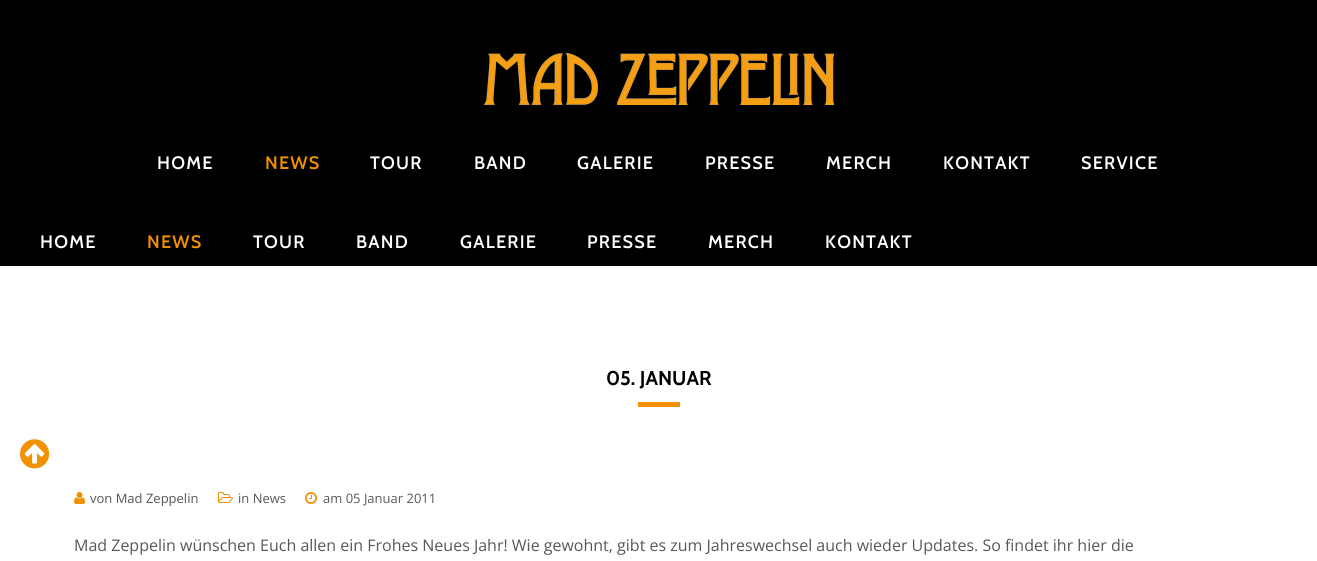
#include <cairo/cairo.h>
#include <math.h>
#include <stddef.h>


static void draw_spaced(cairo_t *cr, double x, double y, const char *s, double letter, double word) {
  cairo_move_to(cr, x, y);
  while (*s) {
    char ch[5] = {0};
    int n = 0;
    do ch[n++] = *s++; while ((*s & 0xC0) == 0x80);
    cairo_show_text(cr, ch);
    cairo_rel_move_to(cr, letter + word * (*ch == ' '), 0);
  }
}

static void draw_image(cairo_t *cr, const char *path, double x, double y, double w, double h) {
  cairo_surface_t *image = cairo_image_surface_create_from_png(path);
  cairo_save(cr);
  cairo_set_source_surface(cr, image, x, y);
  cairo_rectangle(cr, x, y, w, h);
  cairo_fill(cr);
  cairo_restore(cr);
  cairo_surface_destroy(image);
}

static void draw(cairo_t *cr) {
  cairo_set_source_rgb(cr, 1, 1, 1);
  cairo_paint(cr);
  draw_image(cr, "images/1.png", 20, 439, 30, 30);
  cairo_set_source_rgb(cr, 0, 0, 0);
  cairo_rectangle(cr, 0, 0, 1317, 266);
  cairo_fill(cr);
  draw_image(cr, "images/2.png", 484, 53, 350, 52);
  cairo_set_source_rgb(cr, 241 / 255.0, 145 / 255.0, 0);
  cairo_rectangle(cr, 638, 402, 42, 5);
  cairo_fill(cr);
  draw_image(cr, "images/3.png", 74, 492, 11, 12);
  draw_image(cr, "images/4.png", 218, 492, 15, 11);
  draw_image(cr, "images/5.png", 305, 492, 12, 12);
  cairo_select_font_face(cr, "Cabin SemiBold", CAIRO_FONT_SLANT_NORMAL, CAIRO_FONT_WEIGHT_NORMAL);
  cairo_set_font_size(cr, 18);
  cairo_set_source_rgb(cr, 1, 1, 1);
  draw_spaced(cr, 157, 169, "HOME", 1.25, 0);
  cairo_set_source_rgb(cr, 241 / 255.0, 145 / 255.0, 0);
  draw_spaced(cr, 265, 169, "NEWS", 1.25, 0);
  cairo_set_source_rgb(cr, 1, 1, 1);
  draw_spaced(cr, 370, 169, "TOUR", 1.25, 0);
  draw_spaced(cr, 474, 169, "BAND", 1.25, 0);
  draw_spaced(cr, 577, 169, "GALERIE", 1.25, 0);
  draw_spaced(cr, 705, 169, "PRESSE", 1.25, 0);
  draw_spaced(cr, 826, 169, "MERCH", 1.25, 0);
  draw_spaced(cr, 943, 169, "KONTAKT", 1.25, 0);
  draw_spaced(cr, 1081, 169, "SERVICE", 1.25, 0);
  draw_spaced(cr, 40, 248, "HOME", 1.25, 0);
  cairo_set_source_rgb(cr, 241 / 255.0, 145 / 255.0, 0);
  draw_spaced(cr, 147, 248, "NEWS", 1.25, 0);
  cairo_set_source_rgb(cr, 1, 1, 1);
  draw_spaced(cr, 253, 248, "TOUR", 1.25, 0);
  draw_spaced(cr, 356, 248, "BAND", 1.25, 0);
  draw_spaced(cr, 460, 248, "GALERIE", 1.25, 0);
  draw_spaced(cr, 587, 248, "PRESSE", 1.25, 0);
  draw_spaced(cr, 708, 248, "MERCH", 1.25, 0);
  draw_spaced(cr, 825, 248, "KONTAKT", 1.25, 0);
  cairo_select_font_face(cr, "Cabin", CAIRO_FONT_SLANT_NORMAL, CAIRO_FONT_WEIGHT_BOLD);
  cairo_set_font_size(cr, 20);
  cairo_set_source_rgb(cr, 1 / 255.0, 1 / 255.0, 0);
  cairo_move_to(cr, 606, 385);
  cairo_show_text(cr, "05. JANUAR");
  cairo_select_font_face(cr, "Open Sans", CAIRO_FONT_SLANT_NORMAL, CAIRO_FONT_WEIGHT_NORMAL);
  cairo_set_font_size(cr, 13);
  cairo_set_source_rgb(cr, 88 / 255.0, 88 / 255.0, 88 / 255.0);
  cairo_move_to(cr, 90, 503);
  cairo_show_text(cr, "von Mad Zeppelin");
  cairo_move_to(cr, 238, 503);
  cairo_show_text(cr, "in News");
  cairo_move_to(cr, 323, 503);
  cairo_show_text(cr, "am 05 Januar 2011");
  cairo_set_font_size(cr, 16);
  cairo_move_to(cr, 74, 551);
  cairo_show_text(cr, "Mad Zeppelin wünschen Euch allen ein Frohes Neues Jahr! Wie gewohnt, gibt es zum Jahreswechsel auch wieder Updates. So findet ihr hier die");
}

int main(void) {
  cairo_surface_t *surface = cairo_image_surface_create(CAIRO_FORMAT_RGB24, 1317, 561);
  cairo_t *cr = cairo_create(surface);
  cairo_font_options_t *options = cairo_font_options_create();
  cairo_font_options_set_hint_metrics(options, CAIRO_HINT_METRICS_OFF);
  cairo_font_options_set_hint_style(options, CAIRO_HINT_STYLE_NONE);
  cairo_set_font_options(cr, options);
  cairo_set_miter_limit(cr, 4);
  draw(cr);
  cairo_surface_write_to_png(surface, "out.png");
  cairo_font_options_destroy(options);
  cairo_destroy(cr);
  cairo_surface_destroy(surface);
  return 0;
}
